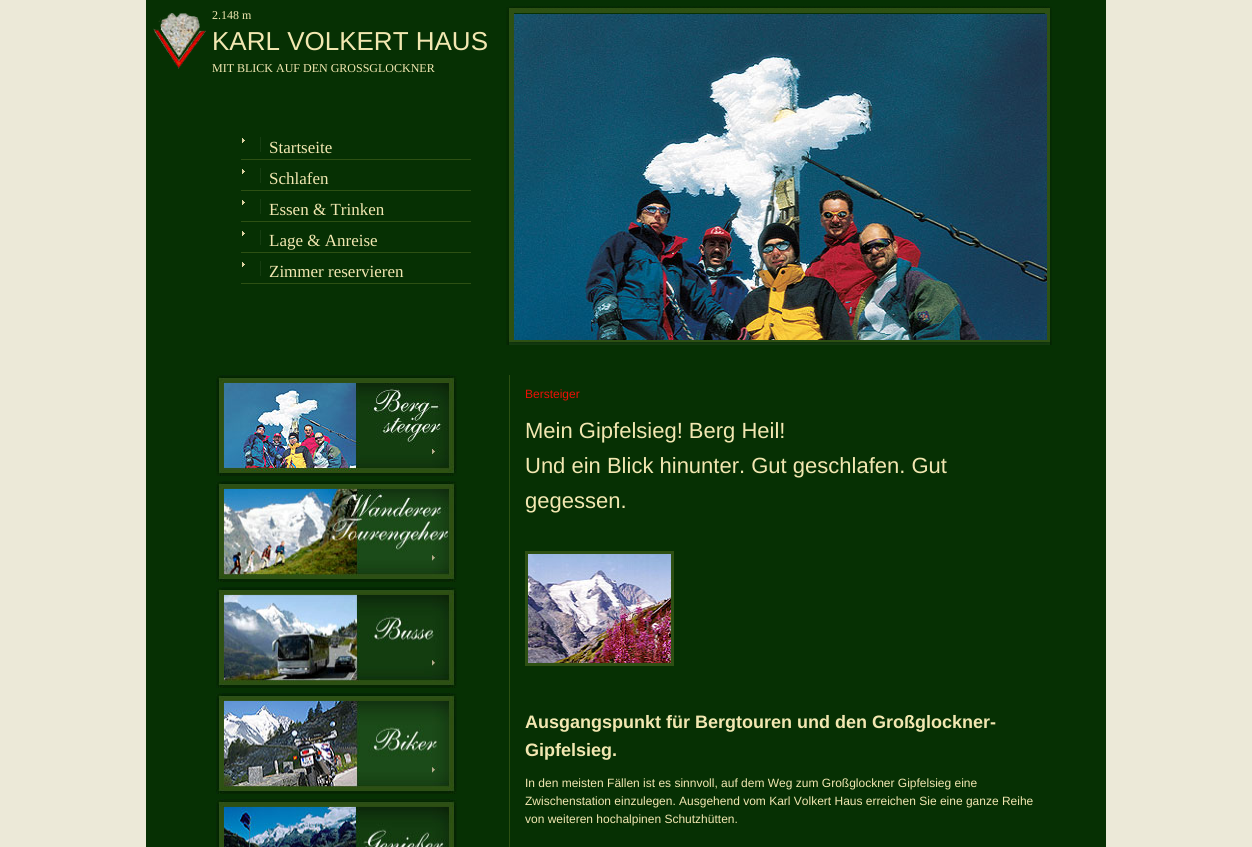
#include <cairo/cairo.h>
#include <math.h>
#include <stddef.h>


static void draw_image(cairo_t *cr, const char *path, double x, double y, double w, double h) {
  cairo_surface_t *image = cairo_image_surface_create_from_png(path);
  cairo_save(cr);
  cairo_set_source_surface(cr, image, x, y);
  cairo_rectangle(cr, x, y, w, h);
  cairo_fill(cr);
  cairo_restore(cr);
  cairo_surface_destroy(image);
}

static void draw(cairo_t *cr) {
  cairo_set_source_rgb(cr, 236 / 255.0, 233 / 255.0, 216 / 255.0);
  cairo_paint(cr);
  cairo_set_source_rgb(cr, 6 / 255.0, 48 / 255.0, 3 / 255.0);
  cairo_rectangle(cr, 146, 0, 960, 847);
  cairo_fill(cr);
  draw_image(cr, "images/1.png", 153, 13, 53, 56);
  cairo_set_source_rgb(cr, 45 / 255.0, 80 / 255.0, 19 / 255.0);
  cairo_rectangle(cr, 241, 159, 230, 1);
  cairo_fill(cr);
  draw_image(cr, "images/2.png", 242, 137, 19, 15);
  cairo_rectangle(cr, 241, 190, 230, 1);
  cairo_fill(cr);
  draw_image(cr, "images/2.png", 242, 168, 19, 15);
  cairo_rectangle(cr, 241, 221, 230, 1);
  cairo_fill(cr);
  draw_image(cr, "images/2.png", 242, 199, 19, 15);
  cairo_rectangle(cr, 241, 252, 230, 1);
  cairo_fill(cr);
  draw_image(cr, "images/2.png", 242, 230, 19, 15);
  cairo_rectangle(cr, 241, 283, 230, 1);
  cairo_fill(cr);
  draw_image(cr, "images/2.png", 242, 261, 19, 15);
  draw_image(cr, "images/3.png", 506, 6, 546, 339);
  draw_image(cr, "images/4.png", 514, 14, 533, 326);
  draw_image(cr, "images/5.png", 216, 375, 241, 101);
  draw_image(cr, "images/6.png", 216, 481, 241, 101);
  draw_image(cr, "images/7.png", 216, 587, 241, 101);
  draw_image(cr, "images/8.png", 216, 693, 241, 101);
  draw_image(cr, "images/9.png", 216, 799, 241, 48);
  cairo_rectangle(cr, 509, 375, 1, 472);
  cairo_fill(cr);
  cairo_rectangle(cr, 526.5, 552.5, 146, 112);
  cairo_set_line_width(cr, 3);
  cairo_stroke(cr);
  draw_image(cr, "images/10.png", 528, 554, 143, 109);
  cairo_select_font_face(cr, "Liberation Serif", CAIRO_FONT_SLANT_NORMAL, CAIRO_FONT_WEIGHT_NORMAL);
  cairo_set_font_size(cr, 12);
  cairo_set_source_rgb(cr, 242 / 255.0, 231 / 255.0, 177 / 255.0);
  cairo_move_to(cr, 212, 19);
  cairo_show_text(cr, "2.148 m");
  cairo_select_font_face(cr, "Liberation Sans", CAIRO_FONT_SLANT_NORMAL, CAIRO_FONT_WEIGHT_NORMAL);
  cairo_set_font_size(cr, 26);
  cairo_move_to(cr, 212, 50);
  cairo_show_text(cr, "KARL VOLKERT HAUS");
  cairo_select_font_face(cr, "Liberation Serif", CAIRO_FONT_SLANT_NORMAL, CAIRO_FONT_WEIGHT_NORMAL);
  cairo_set_font_size(cr, 12);
  cairo_move_to(cr, 212, 72);
  cairo_show_text(cr, "MIT BLICK AUF DEN GROSSGLOCKNER");
  cairo_set_font_size(cr, 17);
  cairo_move_to(cr, 269, 153);
  cairo_show_text(cr, "Startseite");
  cairo_move_to(cr, 269, 184);
  cairo_show_text(cr, "Schlafen");
  cairo_move_to(cr, 269, 215);
  cairo_show_text(cr, "Essen & Trinken");
  cairo_move_to(cr, 269, 246);
  cairo_show_text(cr, "Lage & Anreise");
  cairo_move_to(cr, 269, 277);
  cairo_show_text(cr, "Zimmer reservieren");
  cairo_select_font_face(cr, "Liberation Sans", CAIRO_FONT_SLANT_NORMAL, CAIRO_FONT_WEIGHT_NORMAL);
  cairo_set_font_size(cr, 12);
  cairo_set_source_rgb(cr, 236 / 255.0, 15 / 255.0, 6 / 255.0);
  cairo_move_to(cr, 525, 398);
  cairo_show_text(cr, "Bersteiger");
  cairo_set_font_size(cr, 22);
  cairo_set_source_rgb(cr, 242 / 255.0, 231 / 255.0, 177 / 255.0);
  cairo_move_to(cr, 525, 438);
  cairo_show_text(cr, "Mein Gipfelsieg! Berg Heil!");
  cairo_move_to(cr, 525, 473);
  cairo_show_text(cr, "Und ein Blick hinunter. Gut geschlafen. Gut");
  cairo_move_to(cr, 525, 508);
  cairo_show_text(cr, "gegessen.");
  cairo_select_font_face(cr, "Liberation Sans", CAIRO_FONT_SLANT_NORMAL, CAIRO_FONT_WEIGHT_BOLD);
  cairo_set_font_size(cr, 18);
  cairo_move_to(cr, 525, 728);
  cairo_show_text(cr, "Ausgangspunkt für Bergtouren und den Großglockner-");
  cairo_move_to(cr, 525, 756);
  cairo_show_text(cr, "Gipfelsieg.");
  cairo_select_font_face(cr, "Liberation Sans", CAIRO_FONT_SLANT_NORMAL, CAIRO_FONT_WEIGHT_NORMAL);
  cairo_set_font_size(cr, 12);
  cairo_move_to(cr, 525, 787);
  cairo_show_text(cr, "In den meisten Fällen ist es sinnvoll, auf dem Weg zum Großglockner Gipfelsieg eine");
  cairo_move_to(cr, 525, 805);
  cairo_show_text(cr, "Zwischenstation einzulegen. Ausgehend vom Karl Volkert Haus erreichen Sie eine ganze Reihe");
  cairo_move_to(cr, 525, 823);
  cairo_show_text(cr, "von weiteren hochalpinen Schutzhütten.");
}

int main(void) {
  cairo_surface_t *surface = cairo_image_surface_create(CAIRO_FORMAT_RGB24, 1252, 847);
  cairo_t *cr = cairo_create(surface);
  cairo_font_options_t *options = cairo_font_options_create();
  cairo_font_options_set_hint_metrics(options, CAIRO_HINT_METRICS_OFF);
  cairo_font_options_set_hint_style(options, CAIRO_HINT_STYLE_NONE);
  cairo_set_font_options(cr, options);
  cairo_set_miter_limit(cr, 4);
  draw(cr);
  cairo_surface_write_to_png(surface, "out.png");
  cairo_font_options_destroy(options);
  cairo_destroy(cr);
  cairo_surface_destroy(surface);
  return 0;
}
